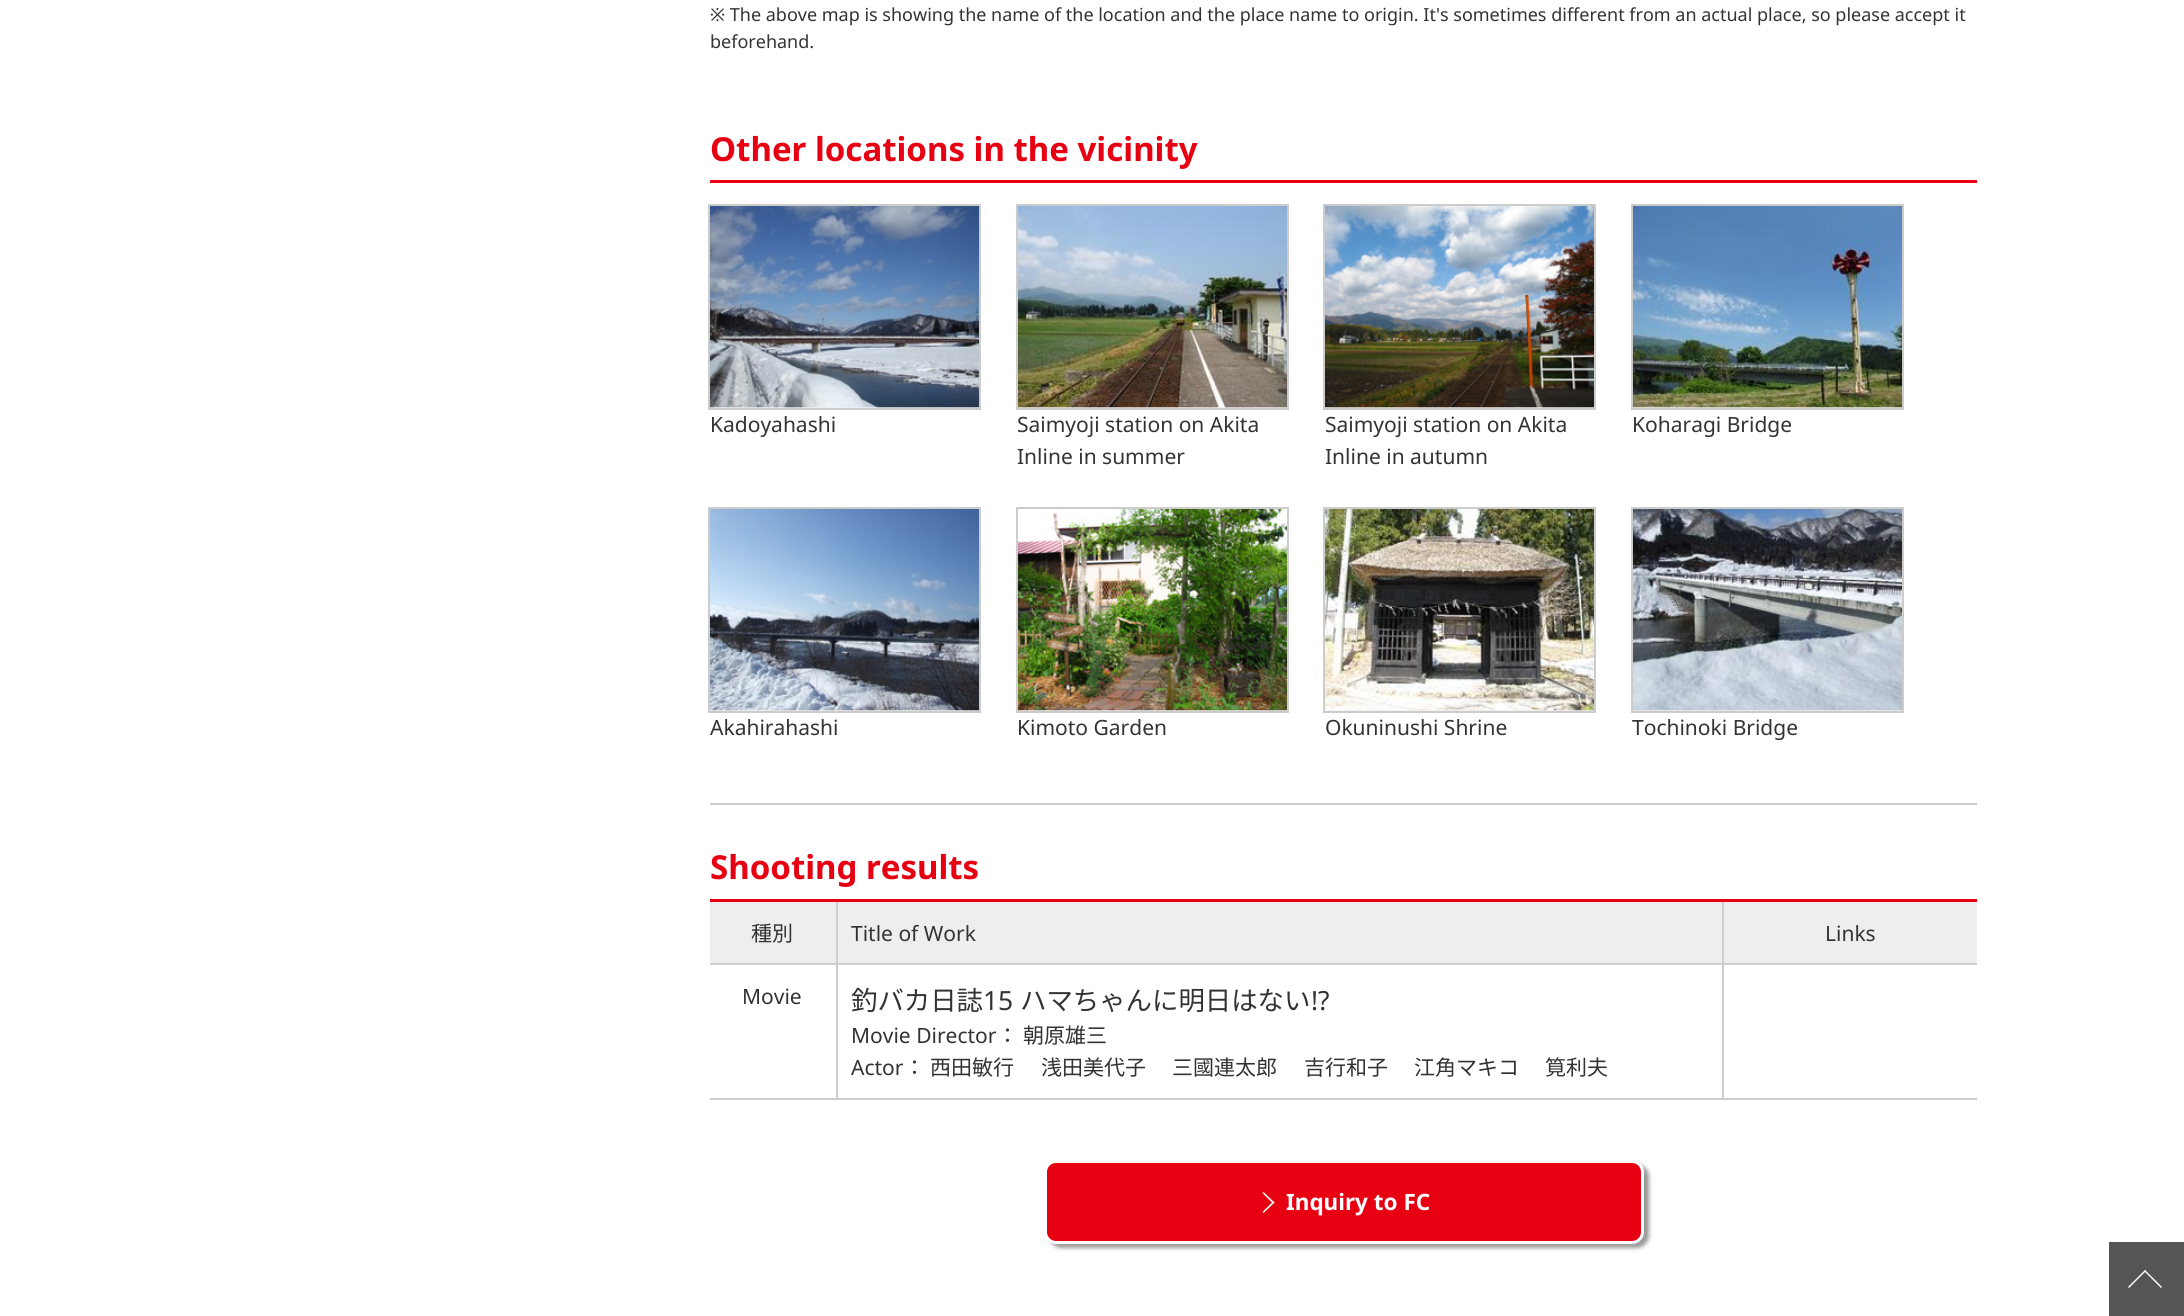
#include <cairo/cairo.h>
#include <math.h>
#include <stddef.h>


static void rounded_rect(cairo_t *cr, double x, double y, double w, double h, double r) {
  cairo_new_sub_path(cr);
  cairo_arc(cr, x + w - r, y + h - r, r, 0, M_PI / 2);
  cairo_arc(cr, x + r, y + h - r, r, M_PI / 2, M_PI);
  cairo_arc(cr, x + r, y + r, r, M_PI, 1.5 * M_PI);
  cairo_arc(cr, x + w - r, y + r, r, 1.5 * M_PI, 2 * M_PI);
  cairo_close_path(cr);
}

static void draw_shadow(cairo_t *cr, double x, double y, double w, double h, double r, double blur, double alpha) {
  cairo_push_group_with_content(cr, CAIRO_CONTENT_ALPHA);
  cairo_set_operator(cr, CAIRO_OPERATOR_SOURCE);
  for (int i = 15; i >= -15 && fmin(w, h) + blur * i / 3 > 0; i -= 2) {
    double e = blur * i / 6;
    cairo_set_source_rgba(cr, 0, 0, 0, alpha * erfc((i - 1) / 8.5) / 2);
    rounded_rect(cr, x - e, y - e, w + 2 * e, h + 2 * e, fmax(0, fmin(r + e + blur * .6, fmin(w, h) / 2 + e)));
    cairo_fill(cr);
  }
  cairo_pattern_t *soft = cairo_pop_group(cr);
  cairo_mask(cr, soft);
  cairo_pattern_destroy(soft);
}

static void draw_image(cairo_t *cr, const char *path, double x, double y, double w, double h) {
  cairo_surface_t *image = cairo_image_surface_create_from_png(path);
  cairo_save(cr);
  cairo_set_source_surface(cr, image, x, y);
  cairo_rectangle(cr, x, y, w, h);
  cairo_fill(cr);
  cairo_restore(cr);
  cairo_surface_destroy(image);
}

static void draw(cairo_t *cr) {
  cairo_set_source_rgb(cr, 1, 1, 1);
  cairo_paint(cr);
  cairo_set_source_rgb(cr, 204 / 255.0, 204 / 255.0, 204 / 255.0);
  cairo_rectangle(cr, 710, 803, 1267, 2);
  cairo_fill(cr);
  cairo_set_source_rgb(cr, 230 / 255.0, 0, 18 / 255.0);
  cairo_rectangle(cr, 710, 180, 1267, 3);
  cairo_fill(cr);
  cairo_set_source_rgb(cr, 239 / 255.0, 239 / 255.0, 239 / 255.0);
  cairo_rectangle(cr, 710, 407, 269, 1);
  cairo_fill(cr);
  draw_image(cr, "images/1.png", 710, 206, 269, 202);
  cairo_rectangle(cr, 709, 205, 271, 204);
  cairo_set_source_rgb(cr, 204 / 255.0, 204 / 255.0, 204 / 255.0);
  cairo_stroke(cr);
  cairo_set_source_rgb(cr, 239 / 255.0, 239 / 255.0, 239 / 255.0);
  cairo_rectangle(cr, 1018, 407, 269, 1);
  cairo_fill(cr);
  draw_image(cr, "images/2.png", 1018, 206, 269, 202);
  cairo_rectangle(cr, 1017, 205, 271, 204);
  cairo_set_source_rgb(cr, 204 / 255.0, 204 / 255.0, 204 / 255.0);
  cairo_stroke(cr);
  cairo_set_source_rgb(cr, 239 / 255.0, 239 / 255.0, 239 / 255.0);
  cairo_rectangle(cr, 1325, 407, 269, 1);
  cairo_fill(cr);
  draw_image(cr, "images/3.png", 1325, 206, 269, 202);
  cairo_rectangle(cr, 1324, 205, 271, 204);
  cairo_set_source_rgb(cr, 204 / 255.0, 204 / 255.0, 204 / 255.0);
  cairo_stroke(cr);
  cairo_set_source_rgb(cr, 239 / 255.0, 239 / 255.0, 239 / 255.0);
  cairo_rectangle(cr, 1633, 407, 269, 1);
  cairo_fill(cr);
  draw_image(cr, "images/4.png", 1633, 206, 269, 202);
  cairo_rectangle(cr, 1632, 205, 271, 204);
  cairo_set_source_rgb(cr, 204 / 255.0, 204 / 255.0, 204 / 255.0);
  cairo_stroke(cr);
  cairo_set_source_rgb(cr, 239 / 255.0, 239 / 255.0, 239 / 255.0);
  cairo_rectangle(cr, 710, 710, 269, 1);
  cairo_fill(cr);
  draw_image(cr, "images/5.png", 710, 509, 269, 202);
  cairo_rectangle(cr, 709, 508, 271, 204);
  cairo_set_source_rgb(cr, 204 / 255.0, 204 / 255.0, 204 / 255.0);
  cairo_stroke(cr);
  cairo_set_source_rgb(cr, 239 / 255.0, 239 / 255.0, 239 / 255.0);
  cairo_rectangle(cr, 1018, 710, 269, 1);
  cairo_fill(cr);
  draw_image(cr, "images/6.png", 1018, 509, 269, 202);
  cairo_rectangle(cr, 1017, 508, 271, 204);
  cairo_set_source_rgb(cr, 204 / 255.0, 204 / 255.0, 204 / 255.0);
  cairo_stroke(cr);
  cairo_set_source_rgb(cr, 239 / 255.0, 239 / 255.0, 239 / 255.0);
  cairo_rectangle(cr, 1325, 710, 269, 1);
  cairo_fill(cr);
  draw_image(cr, "images/7.png", 1325, 509, 269, 202);
  cairo_rectangle(cr, 1324, 508, 271, 204);
  cairo_set_source_rgb(cr, 204 / 255.0, 204 / 255.0, 204 / 255.0);
  cairo_stroke(cr);
  cairo_set_source_rgb(cr, 239 / 255.0, 239 / 255.0, 239 / 255.0);
  cairo_rectangle(cr, 1633, 710, 269, 1);
  cairo_fill(cr);
  draw_image(cr, "images/8.png", 1633, 509, 269, 202);
  cairo_rectangle(cr, 1632, 508, 271, 204);
  cairo_set_source_rgb(cr, 204 / 255.0, 204 / 255.0, 204 / 255.0);
  cairo_stroke(cr);
  cairo_set_source_rgb(cr, 230 / 255.0, 0, 18 / 255.0);
  cairo_rectangle(cr, 710, 899, 1267, 3);
  cairo_fill(cr);
  cairo_set_source_rgb(cr, 238 / 255.0, 238 / 255.0, 238 / 255.0);
  cairo_rectangle(cr, 710, 902, 1267, 61);
  cairo_fill(cr);
  cairo_set_source_rgb(cr, 204 / 255.0, 204 / 255.0, 204 / 255.0);
  cairo_rectangle(cr, 710, 963, 1267, 2);
  cairo_fill(cr);
  cairo_rectangle(cr, 836, 902, 2, 61);
  cairo_fill(cr);
  cairo_rectangle(cr, 1722, 902, 2, 61);
  cairo_fill(cr);
  cairo_rectangle(cr, 710, 1098, 1267, 2);
  cairo_fill(cr);
  cairo_rectangle(cr, 836, 965, 2, 133);
  cairo_fill(cr);
  cairo_rectangle(cr, 1722, 965, 2, 133);
  cairo_fill(cr);
  cairo_set_source_rgb(cr, 0, 0, 0);
  draw_shadow(cr, 1049, 1164, 600, 84, 12, 2, 0.4);
  cairo_set_source_rgb(cr, 230 / 255.0, 0, 18 / 255.0);
  rounded_rect(cr, 1045.5, 1161.5, 597, 81, 10.5);
  cairo_fill_preserve(cr);
  cairo_set_source_rgb(cr, 1, 1, 1);
  cairo_set_line_width(cr, 3);
  cairo_stroke(cr);
  cairo_new_path(cr);
  cairo_move_to(cr, 1274.5, 1202.5);
  cairo_line_to(cr, 1263.5, 1213);
  cairo_line_to(cr, 1262.5, 1212);
  cairo_line_to(cr, 1273, 1201.5);
  cairo_close_path(cr);
  cairo_fill(cr);
  cairo_new_path(cr);
  cairo_move_to(cr, 1274.5, 1202.5);
  cairo_line_to(cr, 1273, 1203.5);
  cairo_line_to(cr, 1262.5, 1193);
  cairo_line_to(cr, 1263.5, 1192);
  cairo_close_path(cr);
  cairo_fill(cr);
  cairo_set_source_rgb(cr, 85 / 255.0, 85 / 255.0, 85 / 255.0);
  cairo_rectangle(cr, 2109, 1242, 75, 74);
  cairo_fill(cr);
  cairo_set_source_rgb(cr, 1, 1, 1);
  cairo_new_path(cr);
  cairo_move_to(cr, 2146, 1271);
  cairo_line_to(cr, 2129, 1288);
  cairo_line_to(cr, 2128, 1287);
  cairo_line_to(cr, 2145, 1270);
  cairo_close_path(cr);
  cairo_fill(cr);
  cairo_new_path(cr);
  cairo_move_to(cr, 2162, 1287);
  cairo_line_to(cr, 2161, 1288);
  cairo_line_to(cr, 2144, 1271);
  cairo_line_to(cr, 2145, 1270);
  cairo_close_path(cr);
  cairo_fill(cr);
  cairo_select_font_face(cr, "Noto Sans", CAIRO_FONT_SLANT_NORMAL, CAIRO_FONT_WEIGHT_NORMAL);
  cairo_set_font_size(cr, 18);
  cairo_set_source_rgb(cr, 51 / 255.0, 51 / 255.0, 51 / 255.0);
  cairo_move_to(cr, 710, 21);
  cairo_show_text(cr, "※ The above map is showing the name of the location and the place name to origin. It's sometimes different from an actual place, so please accept it");
  cairo_move_to(cr, 710, 48);
  cairo_show_text(cr, "beforehand.");
  cairo_select_font_face(cr, "Noto Sans", CAIRO_FONT_SLANT_NORMAL, CAIRO_FONT_WEIGHT_BOLD);
  cairo_set_font_size(cr, 33);
  cairo_set_source_rgb(cr, 230 / 255.0, 0, 18 / 255.0);
  cairo_move_to(cr, 710, 161);
  cairo_show_text(cr, "Other locations in the vicinity");
  cairo_select_font_face(cr, "Noto Sans", CAIRO_FONT_SLANT_NORMAL, CAIRO_FONT_WEIGHT_NORMAL);
  cairo_set_font_size(cr, 21);
  cairo_set_source_rgb(cr, 51 / 255.0, 51 / 255.0, 51 / 255.0);
  cairo_move_to(cr, 710, 432);
  cairo_show_text(cr, "Kadoyahashi");
  cairo_move_to(cr, 1017, 432);
  cairo_show_text(cr, "Saimyoji station on Akita");
  cairo_move_to(cr, 1017, 464);
  cairo_show_text(cr, "Inline in summer");
  cairo_move_to(cr, 1325, 432);
  cairo_show_text(cr, "Saimyoji station on Akita");
  cairo_move_to(cr, 1325, 464);
  cairo_show_text(cr, "Inline in autumn");
  cairo_move_to(cr, 1632, 432);
  cairo_show_text(cr, "Koharagi Bridge");
  cairo_move_to(cr, 710, 735);
  cairo_show_text(cr, "Akahirahashi");
  cairo_move_to(cr, 1017, 735);
  cairo_show_text(cr, "Kimoto Garden");
  cairo_move_to(cr, 1325, 735);
  cairo_show_text(cr, "Okuninushi Shrine");
  cairo_move_to(cr, 1632, 735);
  cairo_show_text(cr, "Tochinoki Bridge");
  cairo_select_font_face(cr, "Noto Sans", CAIRO_FONT_SLANT_NORMAL, CAIRO_FONT_WEIGHT_BOLD);
  cairo_set_font_size(cr, 33);
  cairo_set_source_rgb(cr, 230 / 255.0, 0, 18 / 255.0);
  cairo_move_to(cr, 710, 879);
  cairo_show_text(cr, "Shooting results");
  cairo_select_font_face(cr, "Noto Sans CJK JP", CAIRO_FONT_SLANT_NORMAL, CAIRO_FONT_WEIGHT_NORMAL);
  cairo_set_font_size(cr, 21);
  cairo_set_source_rgb(cr, 51 / 255.0, 51 / 255.0, 51 / 255.0);
  cairo_move_to(cr, 751, 941);
  cairo_show_text(cr, "種別");
  cairo_select_font_face(cr, "Noto Sans", CAIRO_FONT_SLANT_NORMAL, CAIRO_FONT_WEIGHT_NORMAL);
  cairo_move_to(cr, 851, 941);
  cairo_show_text(cr, "Title of Work");
  cairo_move_to(cr, 1825, 941);
  cairo_show_text(cr, "Links");
  cairo_move_to(cr, 742, 1004);
  cairo_show_text(cr, "Movie");
  cairo_select_font_face(cr, "Noto Sans CJK JP", CAIRO_FONT_SLANT_NORMAL, CAIRO_FONT_WEIGHT_NORMAL);
  cairo_set_font_size(cr, 26.4);
  cairo_move_to(cr, 851, 1010);
  cairo_show_text(cr, "釣バカ日誌");
  cairo_select_font_face(cr, "Noto Sans", CAIRO_FONT_SLANT_NORMAL, CAIRO_FONT_WEIGHT_NORMAL);
  cairo_move_to(cr, 983, 1010);
  cairo_show_text(cr, "15");
  cairo_select_font_face(cr, "Noto Sans CJK JP", CAIRO_FONT_SLANT_NORMAL, CAIRO_FONT_WEIGHT_NORMAL);
  cairo_move_to(cr, 1020, 1010);
  cairo_show_text(cr, "ハマちゃんに明日はない");
  cairo_select_font_face(cr, "Noto Sans", CAIRO_FONT_SLANT_NORMAL, CAIRO_FONT_WEIGHT_NORMAL);
  cairo_move_to(cr, 1311, 1010);
  cairo_show_text(cr, "!?");
  cairo_set_font_size(cr, 21);
  cairo_move_to(cr, 851, 1043);
  cairo_show_text(cr, "Movie Director");
  cairo_select_font_face(cr, "Noto Sans CJK JP", CAIRO_FONT_SLANT_NORMAL, CAIRO_FONT_WEIGHT_NORMAL);
  cairo_move_to(cr, 997, 1043);
  cairo_show_text(cr, "：");
  cairo_move_to(cr, 1023, 1043);
  cairo_show_text(cr, "朝原雄三");
  cairo_select_font_face(cr, "Noto Sans", CAIRO_FONT_SLANT_NORMAL, CAIRO_FONT_WEIGHT_NORMAL);
  cairo_move_to(cr, 851, 1075);
  cairo_show_text(cr, "Actor");
  cairo_select_font_face(cr, "Noto Sans CJK JP", CAIRO_FONT_SLANT_NORMAL, CAIRO_FONT_WEIGHT_NORMAL);
  cairo_move_to(cr, 904, 1075);
  cairo_show_text(cr, "：");
  cairo_move_to(cr, 930, 1075);
  cairo_show_text(cr, "西田敏行");
  cairo_move_to(cr, 1041, 1075);
  cairo_show_text(cr, "浅田美代子");
  cairo_move_to(cr, 1172, 1075);
  cairo_show_text(cr, "三國連太郎");
  cairo_move_to(cr, 1304, 1075);
  cairo_show_text(cr, "吉行和子");
  cairo_move_to(cr, 1414, 1075);
  cairo_show_text(cr, "江角マキコ");
  cairo_move_to(cr, 1545, 1075);
  cairo_show_text(cr, "筧利夫");
  cairo_select_font_face(cr, "Noto Sans", CAIRO_FONT_SLANT_NORMAL, CAIRO_FONT_WEIGHT_BOLD);
  cairo_set_font_size(cr, 22.5);
  cairo_set_source_rgb(cr, 1, 1, 1);
  cairo_move_to(cr, 1286, 1210);
  cairo_show_text(cr, "Inquiry to FC");
}

int main(void) {
  cairo_surface_t *surface = cairo_image_surface_create(CAIRO_FORMAT_RGB24, 2184, 1316);
  cairo_t *cr = cairo_create(surface);
  cairo_font_options_t *options = cairo_font_options_create();
  cairo_font_options_set_hint_metrics(options, CAIRO_HINT_METRICS_OFF);
  cairo_font_options_set_hint_style(options, CAIRO_HINT_STYLE_NONE);
  cairo_set_font_options(cr, options);
  cairo_set_miter_limit(cr, 4);
  draw(cr);
  cairo_surface_write_to_png(surface, "out.png");
  cairo_font_options_destroy(options);
  cairo_destroy(cr);
  cairo_surface_destroy(surface);
  return 0;
}
